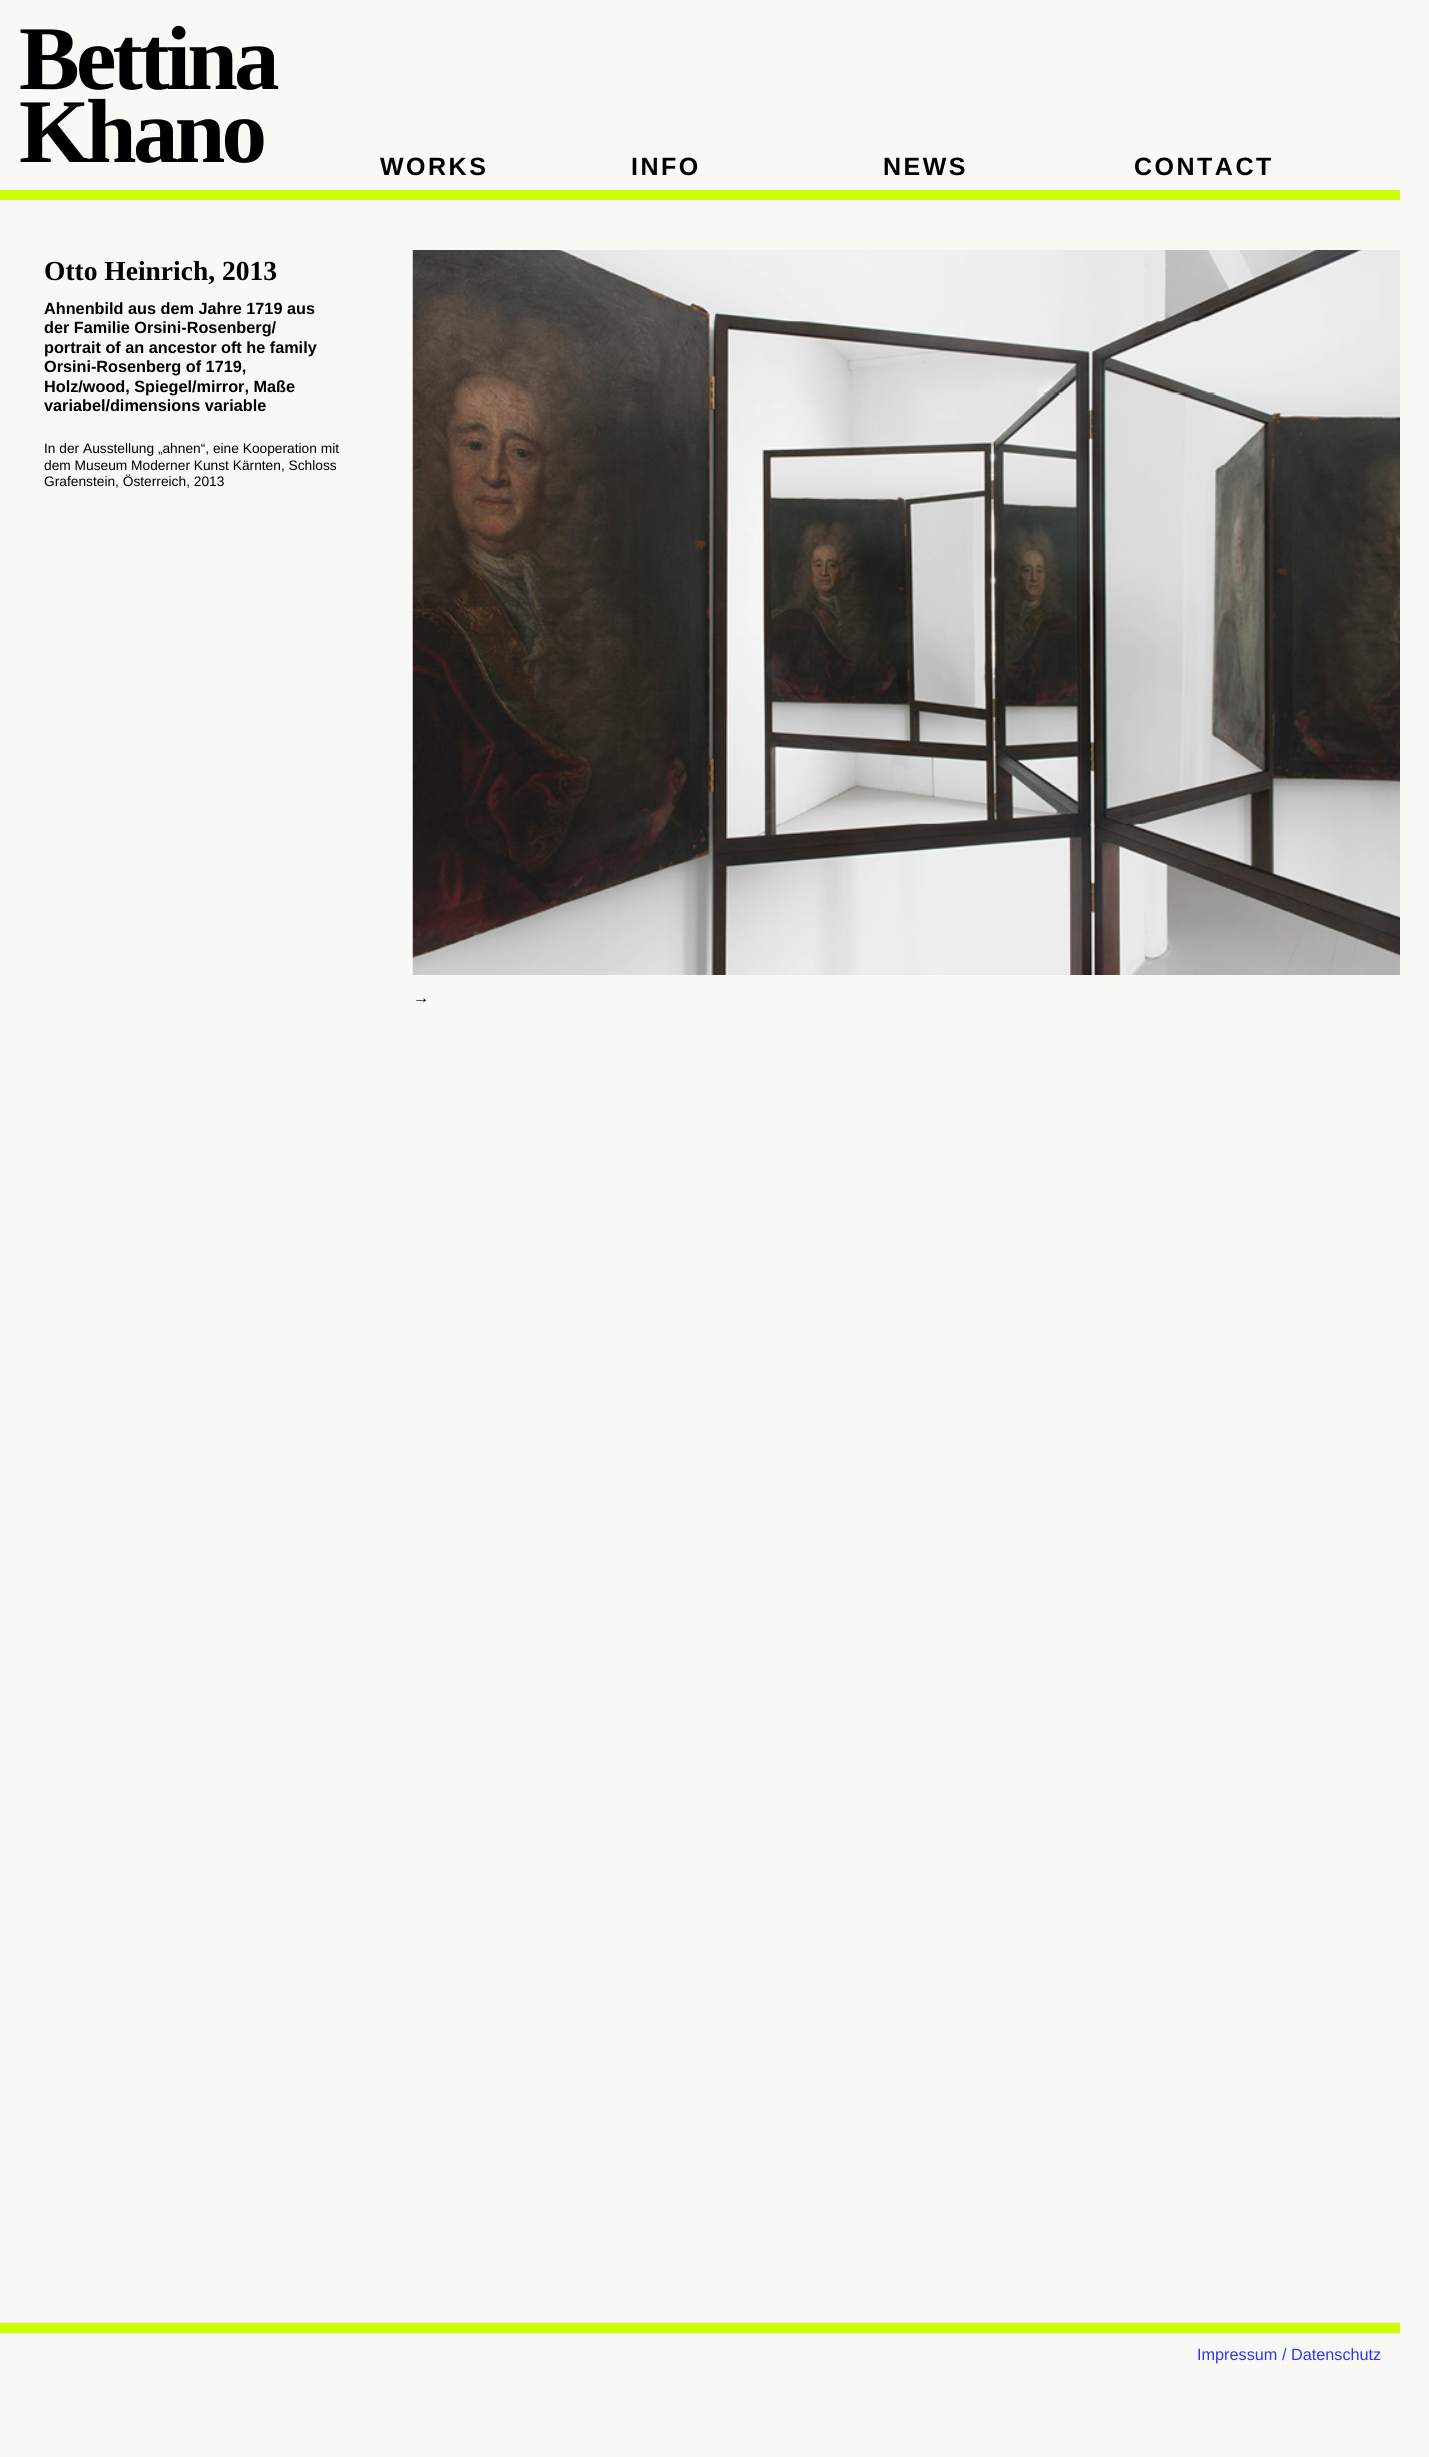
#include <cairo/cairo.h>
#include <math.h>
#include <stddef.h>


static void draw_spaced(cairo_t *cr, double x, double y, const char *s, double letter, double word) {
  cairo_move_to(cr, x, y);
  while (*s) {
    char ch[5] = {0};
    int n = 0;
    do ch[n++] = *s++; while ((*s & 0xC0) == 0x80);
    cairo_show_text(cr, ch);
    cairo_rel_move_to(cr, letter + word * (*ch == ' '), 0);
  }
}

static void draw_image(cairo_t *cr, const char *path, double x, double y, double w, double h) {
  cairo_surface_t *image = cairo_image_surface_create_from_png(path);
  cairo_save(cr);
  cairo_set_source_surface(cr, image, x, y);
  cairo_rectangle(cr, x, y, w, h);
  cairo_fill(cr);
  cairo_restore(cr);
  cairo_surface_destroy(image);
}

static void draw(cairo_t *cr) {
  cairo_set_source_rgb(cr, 248 / 255.0, 248 / 255.0, 245 / 255.0);
  cairo_paint(cr);
  cairo_set_source_rgb(cr, 204 / 255.0, 1, 0);
  cairo_rectangle(cr, 0, 190, 1400, 10);
  cairo_fill(cr);
  draw_image(cr, "images/1.png", 412, 250, 988, 725);
  cairo_rectangle(cr, 0, 2323, 1400, 10);
  cairo_fill(cr);
  cairo_select_font_face(cr, "Liberation Serif", CAIRO_FONT_SLANT_NORMAL, CAIRO_FONT_WEIGHT_BOLD);
  cairo_set_font_size(cr, 91);
  cairo_set_source_rgb(cr, 0, 0, 0);
  draw_spaced(cr, 19, 89, "Bettina", -3.75, 0);
  draw_spaced(cr, 19, 162, "Khano", -3.75, 0);
  cairo_select_font_face(cr, "Liberation Sans", CAIRO_FONT_SLANT_NORMAL, CAIRO_FONT_WEIGHT_BOLD);
  cairo_set_font_size(cr, 25);
  draw_spaced(cr, 380, 175, "WORKS", 2.5, 0);
  draw_spaced(cr, 631, 175, "INFO", 2.5, 0);
  draw_spaced(cr, 883, 175, "NEWS", 2.5, 0);
  draw_spaced(cr, 1134, 175, "CONTACT", 2.5, 0);
  cairo_select_font_face(cr, "Liberation Serif", CAIRO_FONT_SLANT_NORMAL, CAIRO_FONT_WEIGHT_BOLD);
  cairo_set_font_size(cr, 27.5);
  cairo_move_to(cr, 44, 280);
  cairo_show_text(cr, "Otto Heinrich, 2013");
  cairo_select_font_face(cr, "Liberation Sans", CAIRO_FONT_SLANT_NORMAL, CAIRO_FONT_WEIGHT_BOLD);
  cairo_set_font_size(cr, 16.25);
  cairo_move_to(cr, 44, 314);
  cairo_show_text(cr, "Ahnenbild aus dem Jahre 1719 aus");
  cairo_move_to(cr, 44, 333);
  cairo_show_text(cr, "der Familie Orsini-Rosenberg/");
  cairo_move_to(cr, 44, 353);
  cairo_show_text(cr, "portrait of an ancestor oft he family");
  cairo_move_to(cr, 44, 372);
  cairo_show_text(cr, "Orsini-Rosenberg of 1719,");
  cairo_move_to(cr, 44, 392);
  cairo_show_text(cr, "Holz/wood, Spiegel/mirror, Maße");
  cairo_move_to(cr, 44, 411);
  cairo_show_text(cr, "variabel/dimensions variable");
  cairo_select_font_face(cr, "Liberation Sans", CAIRO_FONT_SLANT_NORMAL, CAIRO_FONT_WEIGHT_NORMAL);
  cairo_set_font_size(cr, 13.75);
  cairo_move_to(cr, 44, 453);
  cairo_show_text(cr, "In der Ausstellung „ahnen“, eine Kooperation mit");
  cairo_move_to(cr, 44, 470);
  cairo_show_text(cr, "dem Museum Moderner Kunst Kärnten, Schloss");
  cairo_move_to(cr, 44, 486);
  cairo_show_text(cr, "Grafenstein, Österreich, 2013");
  cairo_set_font_size(cr, 16.25);
  cairo_move_to(cr, 413, 1003);
  cairo_show_text(cr, "→");
  cairo_set_source_rgb(cr, 51 / 255.0, 51 / 255.0, 1);
  cairo_move_to(cr, 1197, 2360);
  cairo_show_text(cr, "Impressum / Datenschutz");
}

int main(void) {
  cairo_surface_t *surface = cairo_image_surface_create(CAIRO_FORMAT_RGB24, 1429, 2457);
  cairo_t *cr = cairo_create(surface);
  cairo_font_options_t *options = cairo_font_options_create();
  cairo_font_options_set_hint_metrics(options, CAIRO_HINT_METRICS_OFF);
  cairo_font_options_set_hint_style(options, CAIRO_HINT_STYLE_NONE);
  cairo_set_font_options(cr, options);
  cairo_set_miter_limit(cr, 4);
  draw(cr);
  cairo_surface_write_to_png(surface, "out.png");
  cairo_font_options_destroy(options);
  cairo_destroy(cr);
  cairo_surface_destroy(surface);
  return 0;
}
